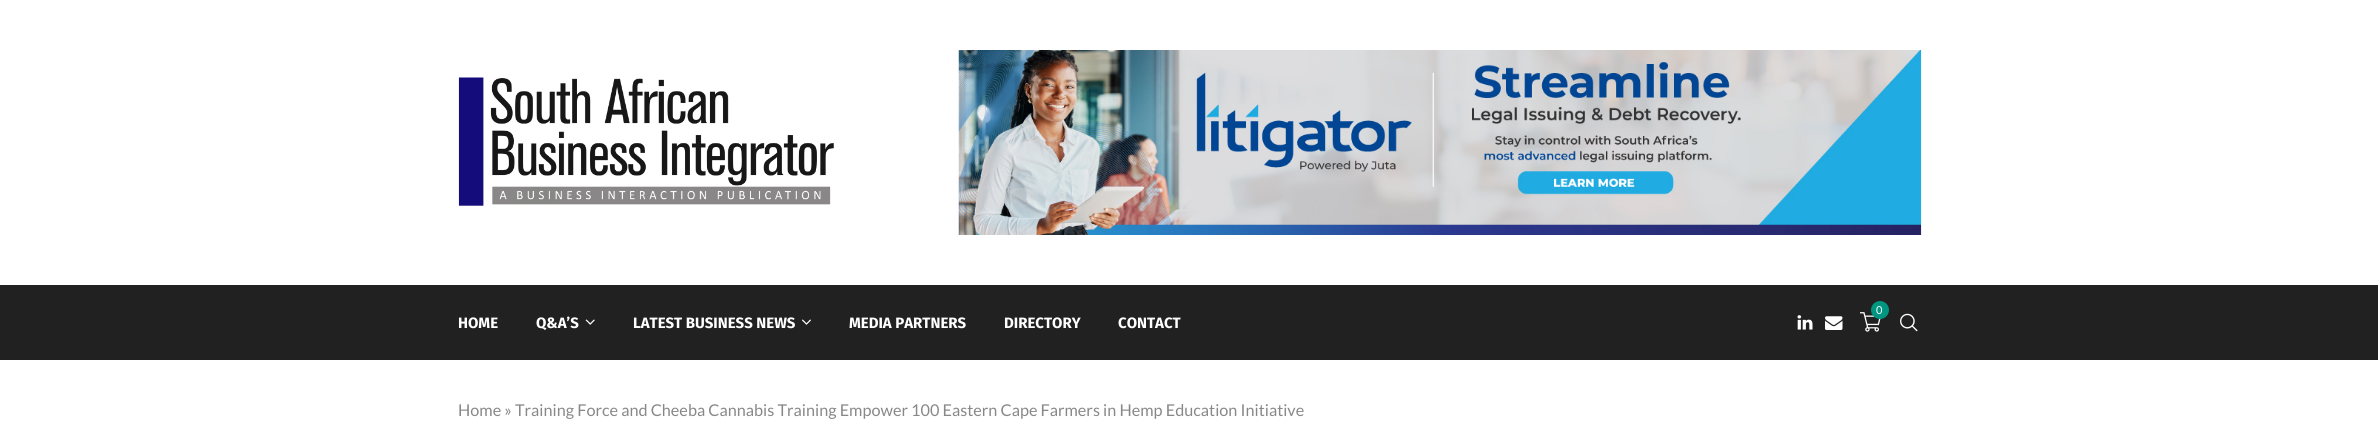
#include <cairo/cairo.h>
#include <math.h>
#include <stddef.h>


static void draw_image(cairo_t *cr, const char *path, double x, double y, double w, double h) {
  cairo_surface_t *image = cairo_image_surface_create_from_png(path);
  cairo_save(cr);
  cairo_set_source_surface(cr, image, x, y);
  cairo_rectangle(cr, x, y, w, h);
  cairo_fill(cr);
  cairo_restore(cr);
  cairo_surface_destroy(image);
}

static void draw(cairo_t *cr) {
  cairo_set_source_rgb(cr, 1, 1, 1);
  cairo_paint(cr);
  draw_image(cr, "images/1.png", 458, 77, 376, 129);
  draw_image(cr, "images/2.png", 958, 50, 964, 185);
  cairo_set_source_rgb(cr, 33 / 255.0, 33 / 255.0, 33 / 255.0);
  cairo_rectangle(cr, 0, 285, 2378, 75);
  cairo_fill(cr);
  draw_image(cr, "images/3.png", 1860, 312, 21, 20);
  cairo_set_source_rgb(cr, 0, 149 / 255.0, 128 / 255.0);
  cairo_arc(cr, 1880, 310, 9, 0, 2 * M_PI);
  cairo_fill(cr);
  draw_image(cr, "images/4.png", 585, 319, 10, 6);
  draw_image(cr, "images/5.png", 802, 319, 9, 6);
  draw_image(cr, "images/6.png", 1797, 315, 16, 15);
  draw_image(cr, "images/7.png", 1825, 316, 18, 14);
  draw_image(cr, "images/8.png", 1900, 313, 18, 19);
  cairo_select_font_face(cr, "Lato", CAIRO_FONT_SLANT_NORMAL, CAIRO_FONT_WEIGHT_NORMAL);
  cairo_set_font_size(cr, 11);
  cairo_set_source_rgb(cr, 1, 1, 1);
  cairo_move_to(cr, 1876, 314);
  cairo_show_text(cr, "0");
  cairo_select_font_face(cr, "Fira Sans", CAIRO_FONT_SLANT_NORMAL, CAIRO_FONT_WEIGHT_BOLD);
  cairo_set_font_size(cr, 15);
  cairo_move_to(cr, 458, 328);
  cairo_show_text(cr, "HOME");
  cairo_move_to(cr, 536, 328);
  cairo_show_text(cr, "Q&A’S");
  cairo_move_to(cr, 633, 328);
  cairo_show_text(cr, "LATEST BUSINESS NEWS");
  cairo_move_to(cr, 849, 328);
  cairo_show_text(cr, "MEDIA PARTNERS");
  cairo_move_to(cr, 1004, 328);
  cairo_show_text(cr, "DIRECTORY");
  cairo_move_to(cr, 1118, 328);
  cairo_show_text(cr, "CONTACT");
  cairo_select_font_face(cr, "Lato", CAIRO_FONT_SLANT_NORMAL, CAIRO_FONT_WEIGHT_NORMAL);
  cairo_set_font_size(cr, 16.25);
  cairo_set_source_rgb(cr, 136 / 255.0, 136 / 255.0, 136 / 255.0);
  cairo_move_to(cr, 458, 416);
  cairo_show_text(cr, "Home » Training Force and Cheeba Cannabis Training Empower 100 Eastern Cape Farmers in Hemp Education Initiative");
}

int main(void) {
  cairo_surface_t *surface = cairo_image_surface_create(CAIRO_FORMAT_RGB24, 2378, 435);
  cairo_t *cr = cairo_create(surface);
  cairo_font_options_t *options = cairo_font_options_create();
  cairo_font_options_set_hint_metrics(options, CAIRO_HINT_METRICS_OFF);
  cairo_font_options_set_hint_style(options, CAIRO_HINT_STYLE_NONE);
  cairo_set_font_options(cr, options);
  cairo_set_miter_limit(cr, 4);
  draw(cr);
  cairo_surface_write_to_png(surface, "out.png");
  cairo_font_options_destroy(options);
  cairo_destroy(cr);
  cairo_surface_destroy(surface);
  return 0;
}
